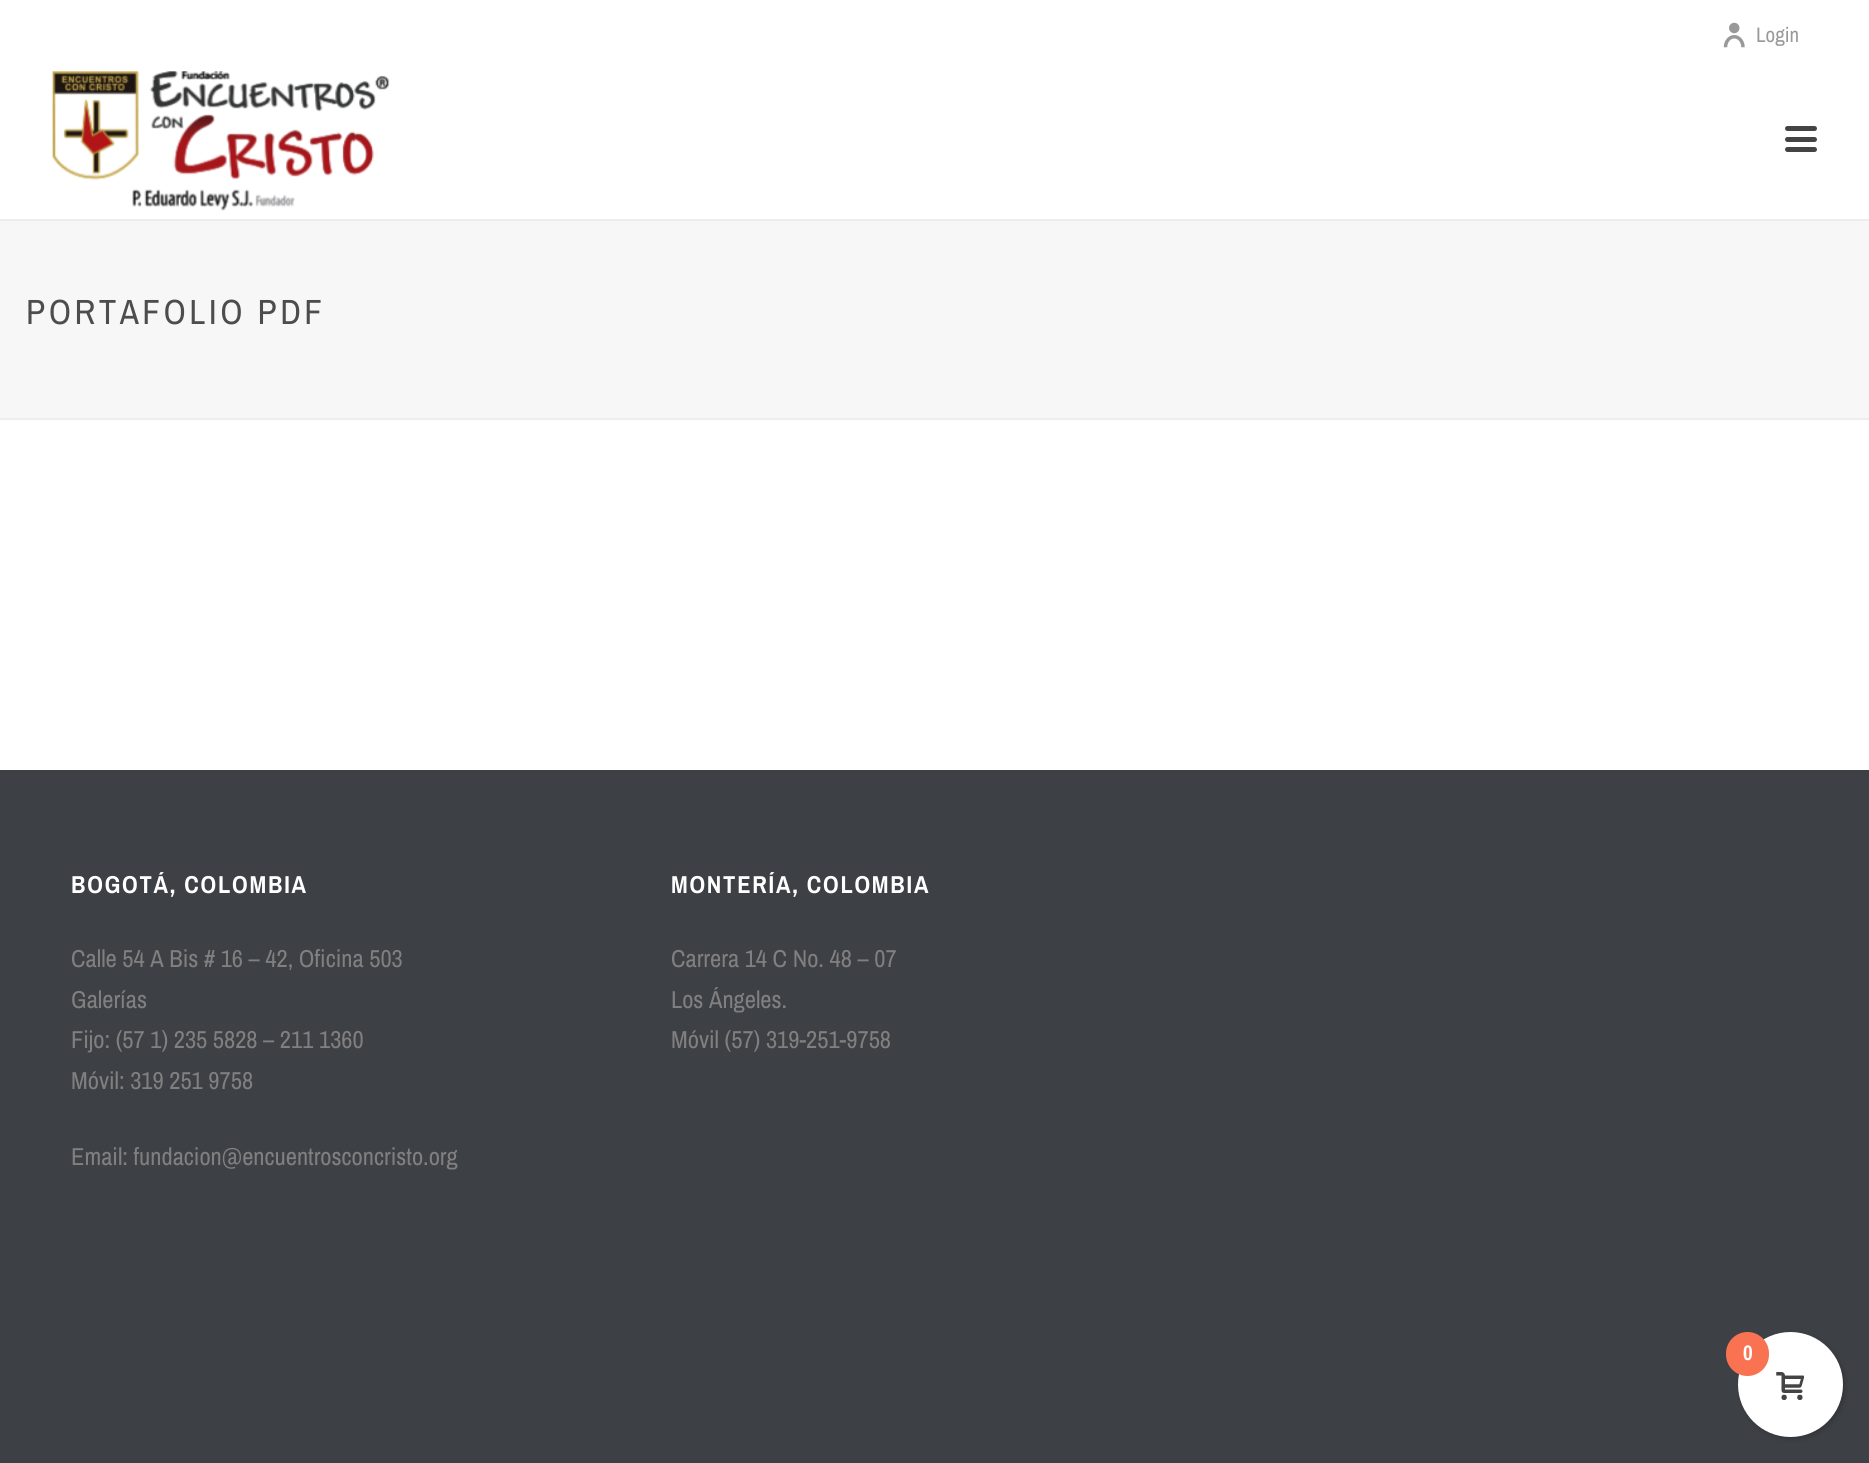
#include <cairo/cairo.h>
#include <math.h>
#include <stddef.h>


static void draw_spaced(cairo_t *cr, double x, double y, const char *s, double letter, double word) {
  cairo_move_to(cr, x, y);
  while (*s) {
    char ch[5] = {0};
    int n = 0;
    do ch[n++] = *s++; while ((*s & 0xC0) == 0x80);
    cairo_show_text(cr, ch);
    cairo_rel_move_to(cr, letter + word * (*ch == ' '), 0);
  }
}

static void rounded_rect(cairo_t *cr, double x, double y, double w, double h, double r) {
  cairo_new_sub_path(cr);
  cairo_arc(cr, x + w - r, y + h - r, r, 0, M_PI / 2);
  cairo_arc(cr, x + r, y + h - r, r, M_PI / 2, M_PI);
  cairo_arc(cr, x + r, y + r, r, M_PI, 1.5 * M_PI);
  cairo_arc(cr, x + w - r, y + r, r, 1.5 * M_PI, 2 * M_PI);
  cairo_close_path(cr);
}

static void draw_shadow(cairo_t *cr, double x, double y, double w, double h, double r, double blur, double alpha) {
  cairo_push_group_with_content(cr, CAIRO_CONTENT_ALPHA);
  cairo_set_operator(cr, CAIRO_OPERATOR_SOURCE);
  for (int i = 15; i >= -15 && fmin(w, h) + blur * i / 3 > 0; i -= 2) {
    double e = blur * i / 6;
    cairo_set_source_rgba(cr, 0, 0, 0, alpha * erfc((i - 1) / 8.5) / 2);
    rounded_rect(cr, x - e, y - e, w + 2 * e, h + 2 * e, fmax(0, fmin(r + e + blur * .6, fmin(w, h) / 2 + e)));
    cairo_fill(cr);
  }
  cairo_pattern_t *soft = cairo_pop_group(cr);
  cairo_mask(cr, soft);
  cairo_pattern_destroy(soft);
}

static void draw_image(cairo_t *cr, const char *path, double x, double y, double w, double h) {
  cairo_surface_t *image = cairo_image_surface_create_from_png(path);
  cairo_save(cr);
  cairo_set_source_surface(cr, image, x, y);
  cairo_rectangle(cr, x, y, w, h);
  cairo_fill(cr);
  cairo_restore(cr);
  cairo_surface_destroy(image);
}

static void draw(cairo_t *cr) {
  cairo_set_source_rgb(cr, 1, 1, 1);
  cairo_paint(cr);
  cairo_set_source_rgb(cr, 247 / 255.0, 247 / 255.0, 247 / 255.0);
  cairo_rectangle(cr, 0, 221, 1869, 197);
  cairo_fill(cr);
  cairo_set_source_rgb(cr, 237 / 255.0, 237 / 255.0, 237 / 255.0);
  cairo_rectangle(cr, 0, 418, 1869, 2);
  cairo_fill(cr);
  draw_image(cr, "images/1.png", 1723, 22, 22, 26);
  cairo_rectangle(cr, 0, 219, 1869, 2);
  cairo_fill(cr);
  draw_image(cr, "images/2.png", 51, 71, 339, 140);
  cairo_set_source_rgb(cr, 68 / 255.0, 68 / 255.0, 68 / 255.0);
  rounded_rect(cr, 1785, 126, 32, 5, 2.5);
  cairo_fill(cr);
  rounded_rect(cr, 1785, 137, 32, 5, 2.5);
  cairo_fill(cr);
  rounded_rect(cr, 1785, 147, 32, 5, 2.5);
  cairo_fill(cr);
  cairo_set_source_rgb(cr, 61 / 255.0, 64 / 255.0, 69 / 255.0);
  cairo_rectangle(cr, 0, 770, 1869, 693);
  cairo_fill(cr);
  cairo_set_source_rgb(cr, 0, 0, 0);
  draw_shadow(cr, 1740, 1334, 105, 105, 52.5, 2.5, 0.2);
  cairo_set_source_rgb(cr, 1, 1, 1);
  cairo_arc(cr, 1790.5, 1384.5, 52.5, 0, 2 * M_PI);
  cairo_fill(cr);
  cairo_set_source_rgb(cr, 249 / 255.0, 115 / 255.0, 82 / 255.0);
  rounded_rect(cr, 1726, 1332, 43, 44, 21.5);
  cairo_fill(cr);
  draw_image(cr, "images/3.png", 1776, 1372, 28, 28);
  cairo_select_font_face(cr, "Archivo Narrow", CAIRO_FONT_SLANT_NORMAL, CAIRO_FONT_WEIGHT_NORMAL);
  cairo_set_font_size(cr, 21);
  cairo_set_source_rgb(cr, 153 / 255.0, 153 / 255.0, 153 / 255.0);
  cairo_move_to(cr, 1756, 42);
  cairo_show_text(cr, "Login");
  cairo_set_font_size(cr, 35);
  cairo_set_source_rgb(cr, 77 / 255.0, 77 / 255.0, 77 / 255.0);
  draw_spaced(cr, 26, 324, "PORTAFOLIO PDF", 3.5, 0);
  cairo_select_font_face(cr, "Archivo Narrow", CAIRO_FONT_SLANT_NORMAL, CAIRO_FONT_WEIGHT_BOLD);
  cairo_set_font_size(cr, 24.5);
  cairo_set_source_rgb(cr, 1, 1, 1);
  draw_spaced(cr, 71, 893, "BOGOTÁ, COLOMBIA", 1.75, 0);
  cairo_select_font_face(cr, "Archivo Narrow", CAIRO_FONT_SLANT_NORMAL, CAIRO_FONT_WEIGHT_NORMAL);
  cairo_set_source_rgb(cr, 128 / 255.0, 128 / 255.0, 128 / 255.0);
  cairo_move_to(cr, 71, 967);
  cairo_show_text(cr, "Calle 54 A Bis # 16 – 42, Oficina 503");
  cairo_move_to(cr, 71, 1008);
  cairo_show_text(cr, "Galerías");
  cairo_move_to(cr, 71, 1048);
  cairo_show_text(cr, "Fijo: (57 1) 235 5828 – 211 1360");
  cairo_move_to(cr, 71, 1089);
  cairo_show_text(cr, "Móvil: 319 251 9758");
  cairo_move_to(cr, 71, 1165);
  cairo_show_text(cr, "Email: fundacion@encuentrosconcristo.org");
  cairo_select_font_face(cr, "Archivo Narrow", CAIRO_FONT_SLANT_NORMAL, CAIRO_FONT_WEIGHT_BOLD);
  cairo_set_source_rgb(cr, 1, 1, 1);
  draw_spaced(cr, 671, 893, "MONTERÍA, COLOMBIA", 1.75, 0);
  cairo_select_font_face(cr, "Archivo Narrow", CAIRO_FONT_SLANT_NORMAL, CAIRO_FONT_WEIGHT_NORMAL);
  cairo_set_source_rgb(cr, 128 / 255.0, 128 / 255.0, 128 / 255.0);
  cairo_move_to(cr, 671, 967);
  cairo_show_text(cr, "Carrera 14 C No. 48 – 07");
  cairo_move_to(cr, 671, 1008);
  cairo_show_text(cr, "Los Ángeles.");
  cairo_move_to(cr, 671, 1048);
  cairo_show_text(cr, "Móvil (57) 319-251-9758");
  cairo_select_font_face(cr, "Archivo Narrow", CAIRO_FONT_SLANT_NORMAL, CAIRO_FONT_WEIGHT_BOLD);
  cairo_set_font_size(cr, 21);
  cairo_set_source_rgb(cr, 1, 1, 1);
  cairo_move_to(cr, 1743, 1360);
  cairo_show_text(cr, "0");
}

int main(void) {
  cairo_surface_t *surface = cairo_image_surface_create(CAIRO_FORMAT_RGB24, 1869, 1463);
  cairo_t *cr = cairo_create(surface);
  cairo_font_options_t *options = cairo_font_options_create();
  cairo_font_options_set_hint_metrics(options, CAIRO_HINT_METRICS_OFF);
  cairo_font_options_set_hint_style(options, CAIRO_HINT_STYLE_NONE);
  cairo_set_font_options(cr, options);
  cairo_set_miter_limit(cr, 4);
  draw(cr);
  cairo_surface_write_to_png(surface, "out.png");
  cairo_font_options_destroy(options);
  cairo_destroy(cr);
  cairo_surface_destroy(surface);
  return 0;
}
